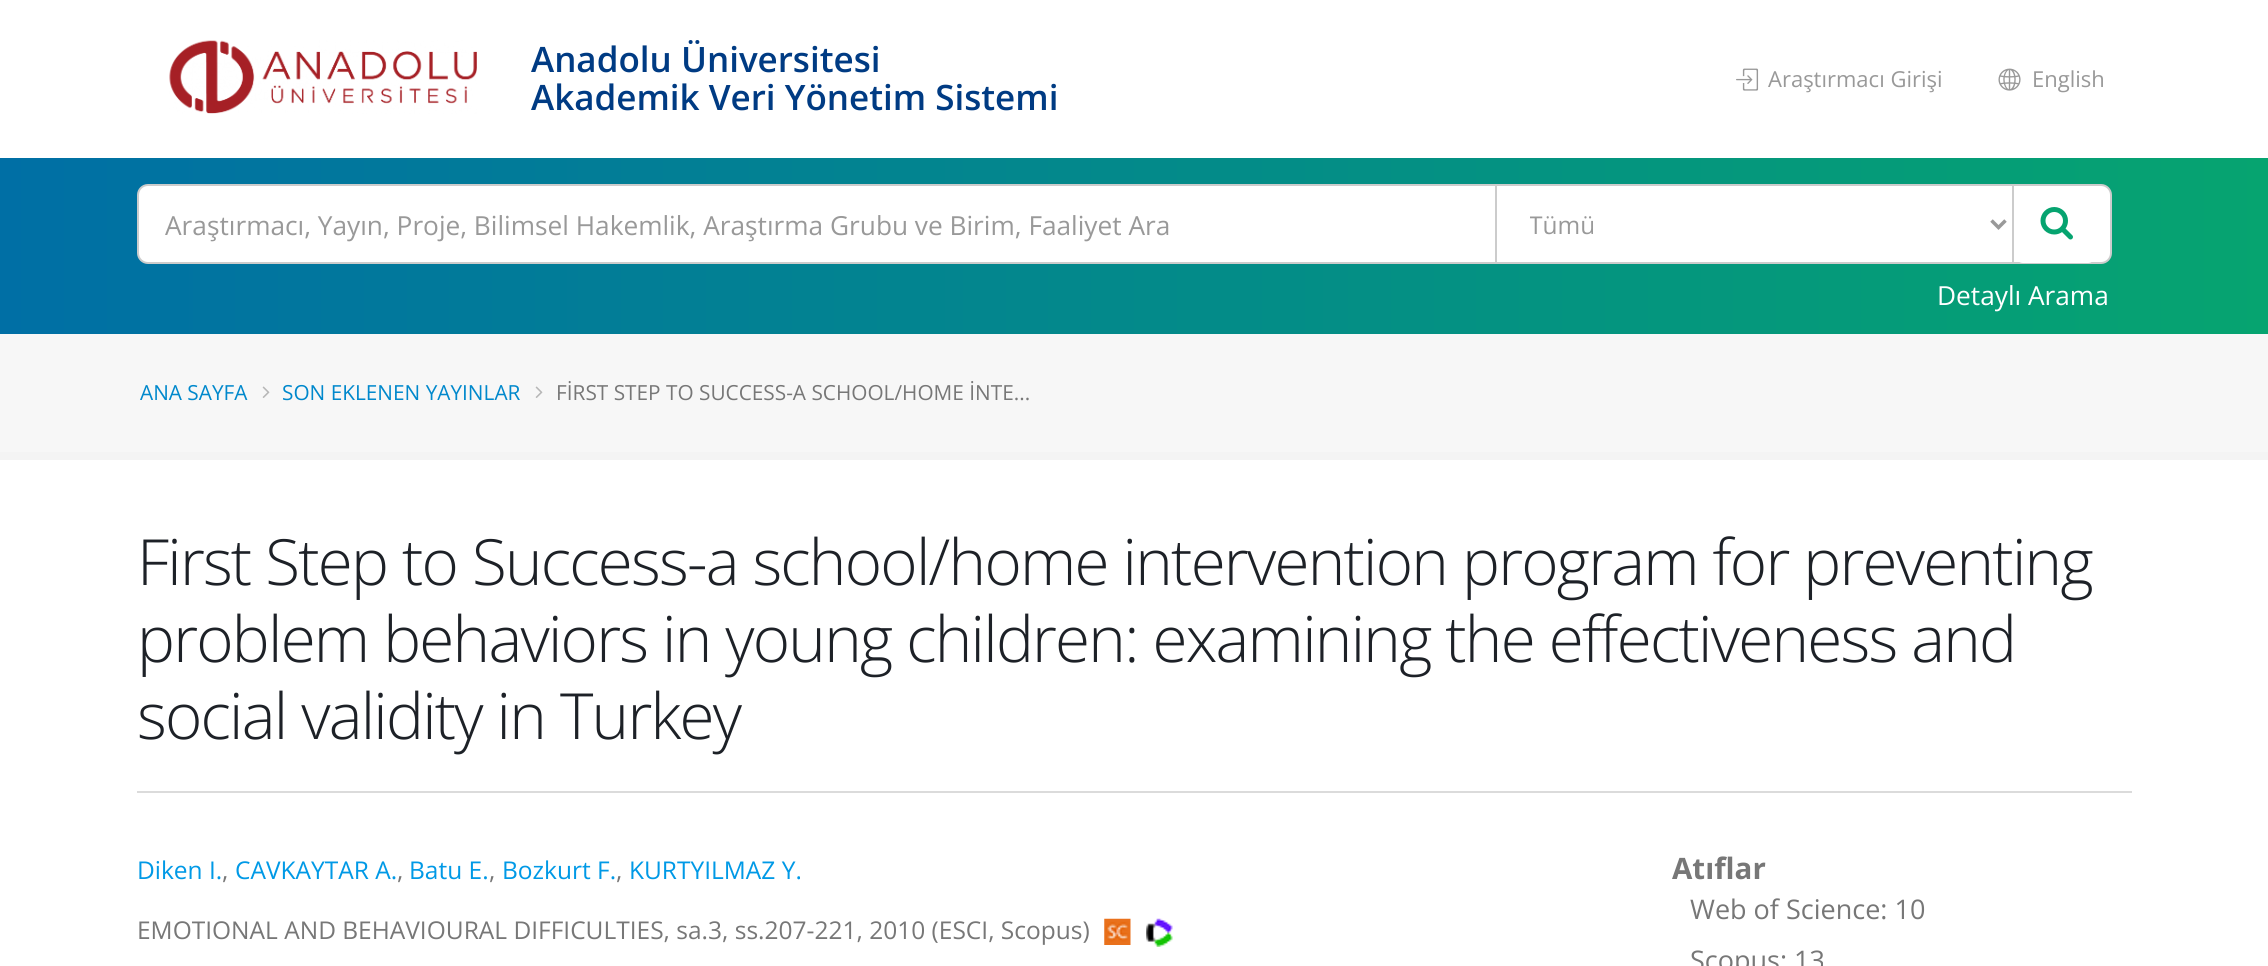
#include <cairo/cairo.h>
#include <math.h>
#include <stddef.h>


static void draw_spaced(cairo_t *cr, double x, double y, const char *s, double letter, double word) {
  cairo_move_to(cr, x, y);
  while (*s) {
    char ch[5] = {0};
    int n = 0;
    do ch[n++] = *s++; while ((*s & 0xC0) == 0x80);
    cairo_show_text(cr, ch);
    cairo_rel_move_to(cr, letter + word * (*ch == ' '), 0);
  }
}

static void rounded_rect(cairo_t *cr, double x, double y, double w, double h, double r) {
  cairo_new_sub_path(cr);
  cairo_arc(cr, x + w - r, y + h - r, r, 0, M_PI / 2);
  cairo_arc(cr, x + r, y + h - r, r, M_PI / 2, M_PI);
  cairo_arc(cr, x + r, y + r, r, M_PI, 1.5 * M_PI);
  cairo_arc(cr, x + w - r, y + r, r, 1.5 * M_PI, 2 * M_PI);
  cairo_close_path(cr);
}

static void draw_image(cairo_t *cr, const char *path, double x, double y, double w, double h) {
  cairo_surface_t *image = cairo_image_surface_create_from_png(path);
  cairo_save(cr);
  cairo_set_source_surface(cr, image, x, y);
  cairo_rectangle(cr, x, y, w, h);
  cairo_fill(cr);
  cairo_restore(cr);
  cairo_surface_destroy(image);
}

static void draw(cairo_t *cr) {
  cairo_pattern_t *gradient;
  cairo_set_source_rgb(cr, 1, 1, 1);
  cairo_paint(cr);
  draw_image(cr, "images/1.png", 169, 40, 308, 74);
  draw_image(cr, "images/2.png", 1736, 68, 23, 23);
  draw_image(cr, "images/3.png", 1998, 68, 23, 23);
  gradient = cairo_pattern_create_linear(0, 246, 2268, 246);
  cairo_pattern_add_color_stop_rgba(gradient, 0, 0, 111 / 255.0, 165 / 255.0, 1);
  cairo_pattern_add_color_stop_rgba(gradient, 1, 6 / 255.0, 164 / 255.0, 112 / 255.0, 1);
  cairo_set_source(cr, gradient);
  cairo_pattern_destroy(gradient);
  cairo_rectangle(cr, 0, 158, 2268, 176);
  cairo_fill(cr);
  cairo_set_source_rgb(cr, 1, 1, 1);
  rounded_rect(cr, 138, 185, 1973, 78, 10);
  cairo_fill_preserve(cr);
  cairo_set_source_rgb(cr, 204 / 255.0, 204 / 255.0, 204 / 255.0);
  cairo_stroke(cr);
  cairo_rectangle(cr, 1496, 185, 517, 78);
  cairo_stroke(cr);
  cairo_new_path(cr);
  cairo_move_to(cr, 1991.5, 220.5);
  cairo_line_to(cr, 1998.5, 227.5);
  cairo_line_to(cr, 2005.5, 220.5);
  cairo_set_source_rgb(cr, 153 / 255.0, 153 / 255.0, 153 / 255.0);
  cairo_set_line_width(cr, 3.5);
  cairo_stroke(cr);
  cairo_set_source_rgb(cr, 1, 1, 1);
  rounded_rect(cr, 2016, 186, 79, 77, 7);
  cairo_fill(cr);
  draw_image(cr, "images/4.png", 2040, 207, 33, 33);
  cairo_set_source_rgb(cr, 247 / 255.0, 247 / 255.0, 247 / 255.0);
  cairo_rectangle(cr, 0, 334, 2268, 118);
  cairo_fill(cr);
  cairo_set_source_rgb(cr, 244 / 255.0, 244 / 255.0, 244 / 255.0);
  cairo_rectangle(cr, 0, 452, 2268, 8);
  cairo_fill(cr);
  draw_image(cr, "images/5.png", 262, 386, 8, 12);
  draw_image(cr, "images/5.png", 535, 386, 8, 12);
  cairo_set_source_rgb(cr, 219 / 255.0, 219 / 255.0, 219 / 255.0);
  cairo_rectangle(cr, 137, 791, 1995, 2);
  cairo_fill(cr);
  draw_image(cr, "images/6.png", 1104, 918, 27, 27);
  draw_image(cr, "images/7.png", 1146, 918, 27, 29);
  cairo_select_font_face(cr, "Open Sans SemiBold", CAIRO_FONT_SLANT_NORMAL, CAIRO_FONT_WEIGHT_NORMAL);
  cairo_set_font_size(cr, 35);
  cairo_set_source_rgb(cr, 0, 59 / 255.0, 131 / 255.0);
  cairo_move_to(cr, 531, 72);
  cairo_show_text(cr, "Anadolu Üniversitesi");
  cairo_move_to(cr, 531, 110);
  cairo_show_text(cr, "Akademik Veri Yönetim Sistemi");
  cairo_select_font_face(cr, "Open Sans", CAIRO_FONT_SLANT_NORMAL, CAIRO_FONT_WEIGHT_NORMAL);
  cairo_set_font_size(cr, 22);
  cairo_set_source_rgb(cr, 153 / 255.0, 153 / 255.0, 153 / 255.0);
  cairo_move_to(cr, 1768, 87);
  cairo_show_text(cr, "Araştırmacı Girişi");
  cairo_move_to(cr, 2032, 87);
  cairo_show_text(cr, "English");
  cairo_set_font_size(cr, 26.25);
  cairo_move_to(cr, 165, 235);
  cairo_show_text(cr, "Araştırmacı, Yayın, Proje, Bilimsel Hakemlik, Araştırma Grubu ve Birim, Faaliyet Ara");
  cairo_save(cr);
  cairo_rectangle(cr, 1530, 207, 428, 36);
  cairo_clip(cr);
  cairo_set_font_size(cr, 24.5);
  cairo_move_to(cr, 1529, 234);
  cairo_show_text(cr, "Tümü");
  cairo_restore(cr);
  cairo_set_source_rgb(cr, 1, 1, 1);
  cairo_move_to(cr, 1937, 305);
  cairo_show_text(cr, "Detaylı Arama");
  cairo_set_font_size(cr, 20.8);
  cairo_set_source_rgb(cr, 0, 136 / 255.0, 204 / 255.0);
  cairo_move_to(cr, 140, 400);
  cairo_show_text(cr, "ANA SAYFA");
  cairo_move_to(cr, 282, 400);
  cairo_show_text(cr, "SON EKLENEN YAYINLAR");
  cairo_set_source_rgb(cr, 119 / 255.0, 119 / 255.0, 119 / 255.0);
  cairo_move_to(cr, 556, 400);
  cairo_show_text(cr, "FİRST STEP TO SUCCESS-A SCHOOL/HOME İNTE...");
  cairo_select_font_face(cr, "Open Sans Light", CAIRO_FONT_SLANT_NORMAL, CAIRO_FONT_WEIGHT_NORMAL);
  cairo_set_font_size(cr, 63.7);
  cairo_set_source_rgb(cr, 29 / 255.0, 33 / 255.0, 39 / 255.0);
  draw_spaced(cr, 137, 585, "First Step to Success-a school/home intervention program for preventing", -1.75, 0);
  draw_spaced(cr, 137, 662, "problem behaviors in young children: examining the effectiveness and", -1.75, 0);
  draw_spaced(cr, 137, 739, "social validity in Turkey", -1.75, 0);
  cairo_select_font_face(cr, "Open Sans", CAIRO_FONT_SLANT_NORMAL, CAIRO_FONT_WEIGHT_NORMAL);
  cairo_set_font_size(cr, 24.5);
  cairo_set_source_rgb(cr, 0, 153 / 255.0, 230 / 255.0);
  cairo_move_to(cr, 137, 879);
  cairo_show_text(cr, "Diken I.");
  cairo_set_source_rgb(cr, 119 / 255.0, 119 / 255.0, 119 / 255.0);
  cairo_move_to(cr, 222, 879);
  cairo_show_text(cr, ",");
  cairo_set_source_rgb(cr, 0, 153 / 255.0, 230 / 255.0);
  cairo_move_to(cr, 235, 879);
  cairo_show_text(cr, "CAVKAYTAR A.");
  cairo_set_source_rgb(cr, 119 / 255.0, 119 / 255.0, 119 / 255.0);
  cairo_move_to(cr, 397, 879);
  cairo_show_text(cr, ",");
  cairo_set_source_rgb(cr, 0, 153 / 255.0, 230 / 255.0);
  cairo_move_to(cr, 409, 879);
  cairo_show_text(cr, "Batu E.");
  cairo_set_source_rgb(cr, 119 / 255.0, 119 / 255.0, 119 / 255.0);
  cairo_move_to(cr, 489, 879);
  cairo_show_text(cr, ",");
  cairo_set_source_rgb(cr, 0, 153 / 255.0, 230 / 255.0);
  cairo_move_to(cr, 502, 879);
  cairo_show_text(cr, "Bozkurt F.");
  cairo_set_source_rgb(cr, 119 / 255.0, 119 / 255.0, 119 / 255.0);
  cairo_move_to(cr, 616, 879);
  cairo_show_text(cr, ",");
  cairo_set_source_rgb(cr, 0, 153 / 255.0, 230 / 255.0);
  cairo_move_to(cr, 629, 879);
  cairo_show_text(cr, "KURTYILMAZ Y.");
  cairo_set_source_rgb(cr, 119 / 255.0, 119 / 255.0, 119 / 255.0);
  cairo_move_to(cr, 137, 939);
  cairo_show_text(cr, "EMOTIONAL AND BEHAVIOURAL DIFFICULTIES, sa.3, ss.207-221, 2010 (ESCI, Scopus)");
  cairo_select_font_face(cr, "Open Sans", CAIRO_FONT_SLANT_NORMAL, CAIRO_FONT_WEIGHT_BOLD);
  cairo_set_font_size(cr, 29.5);
  cairo_move_to(cr, 1672, 879);
  cairo_show_text(cr, "Atıflar");
  cairo_select_font_face(cr, "Open Sans", CAIRO_FONT_SLANT_NORMAL, CAIRO_FONT_WEIGHT_NORMAL);
  cairo_set_font_size(cr, 27);
  cairo_move_to(cr, 1690, 919);
  cairo_show_text(cr, "Web of Science: 10");
  cairo_move_to(cr, 1690, 970);
  cairo_show_text(cr, "Scopus: 13");
}

int main(void) {
  cairo_surface_t *surface = cairo_image_surface_create(CAIRO_FORMAT_RGB24, 2268, 966);
  cairo_t *cr = cairo_create(surface);
  cairo_font_options_t *options = cairo_font_options_create();
  cairo_font_options_set_hint_metrics(options, CAIRO_HINT_METRICS_OFF);
  cairo_font_options_set_hint_style(options, CAIRO_HINT_STYLE_NONE);
  cairo_set_font_options(cr, options);
  cairo_set_miter_limit(cr, 4);
  draw(cr);
  cairo_surface_write_to_png(surface, "out.png");
  cairo_font_options_destroy(options);
  cairo_destroy(cr);
  cairo_surface_destroy(surface);
  return 0;
}
